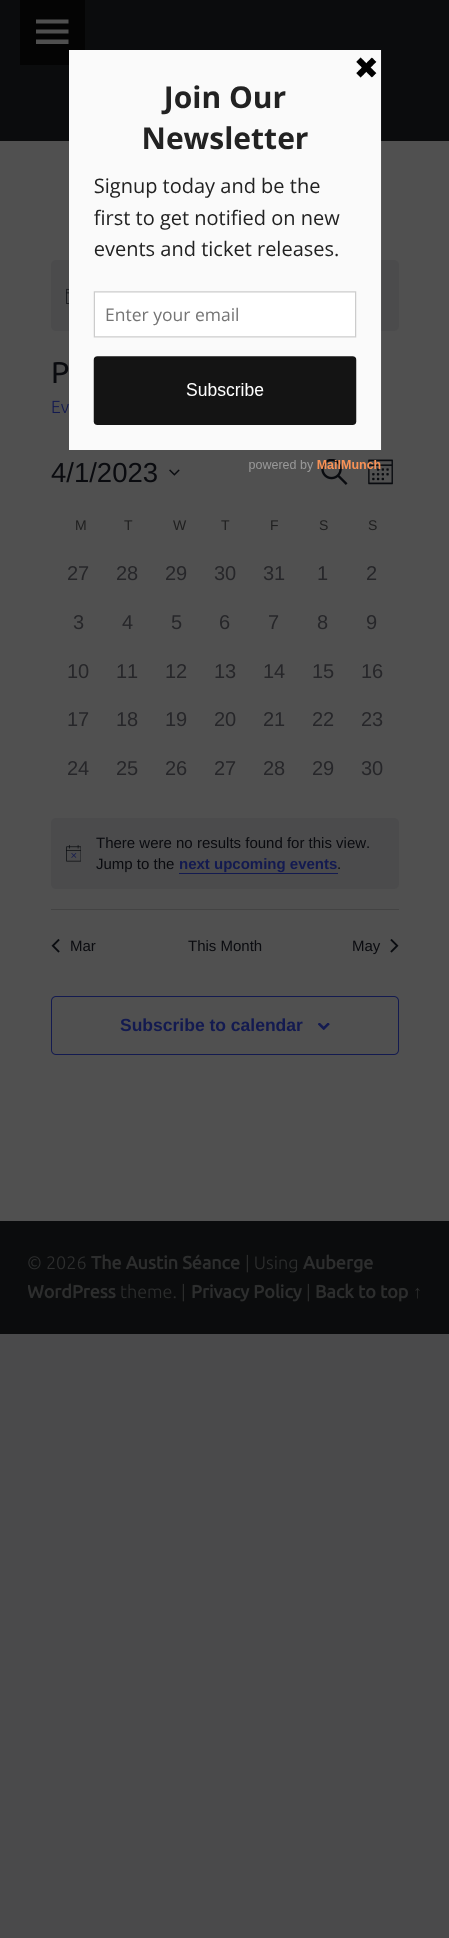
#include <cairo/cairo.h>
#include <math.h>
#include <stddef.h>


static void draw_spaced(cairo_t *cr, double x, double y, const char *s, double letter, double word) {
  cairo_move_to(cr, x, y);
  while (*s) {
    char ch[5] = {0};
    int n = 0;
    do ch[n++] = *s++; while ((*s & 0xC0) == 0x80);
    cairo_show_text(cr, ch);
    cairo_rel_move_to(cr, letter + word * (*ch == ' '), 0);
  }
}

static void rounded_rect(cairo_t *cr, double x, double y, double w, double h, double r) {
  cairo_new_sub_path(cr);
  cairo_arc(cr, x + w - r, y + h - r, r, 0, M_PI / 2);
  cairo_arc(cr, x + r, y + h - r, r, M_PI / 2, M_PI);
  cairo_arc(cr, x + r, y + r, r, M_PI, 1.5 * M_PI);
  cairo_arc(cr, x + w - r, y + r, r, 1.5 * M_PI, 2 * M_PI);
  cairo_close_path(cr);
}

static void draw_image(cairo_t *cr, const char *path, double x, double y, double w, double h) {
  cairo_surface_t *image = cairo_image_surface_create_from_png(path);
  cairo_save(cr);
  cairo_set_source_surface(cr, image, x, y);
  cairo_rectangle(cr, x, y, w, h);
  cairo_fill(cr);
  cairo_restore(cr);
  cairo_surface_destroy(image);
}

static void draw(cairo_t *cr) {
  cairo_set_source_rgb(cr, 74 / 255.0, 74 / 255.0, 75 / 255.0);
  cairo_paint(cr);
  cairo_set_source_rgb(cr, 80 / 255.0, 80 / 255.0, 80 / 255.0);
  cairo_rectangle(cr, 0, 141, 449, 1080);
  cairo_fill(cr);
  cairo_set_source_rgb(cr, 11 / 255.0, 12 / 255.0, 13 / 255.0);
  cairo_rectangle(cr, 0, 0, 449, 141);
  cairo_fill(cr);
  cairo_set_source_rgb(cr, 4 / 255.0, 4 / 255.0, 4 / 255.0);
  cairo_rectangle(cr, 20, 0, 65, 65);
  cairo_fill(cr);
  cairo_set_source_rgb(cr, 80 / 255.0, 80 / 255.0, 80 / 255.0);
  cairo_new_path(cr);
  cairo_move_to(cr, 36, 44);
  cairo_line_to(cr, 36, 39.5);
  cairo_line_to(cr, 68.5, 39.5);
  cairo_line_to(cr, 68.5, 44);
  cairo_close_path(cr);
  cairo_move_to(cr, 36, 19.5);
  cairo_line_to(cr, 68.5, 19.5);
  cairo_line_to(cr, 68.5, 23.5);
  cairo_line_to(cr, 36, 23.5);
  cairo_close_path(cr);
  cairo_move_to(cr, 36, 33.5);
  cairo_line_to(cr, 36, 29.5);
  cairo_line_to(cr, 68.5, 29.5);
  cairo_line_to(cr, 68.5, 33.5);
  cairo_close_path(cr);
  cairo_fill(cr);
  cairo_set_source_rgb(cr, 75 / 255.0, 75 / 255.0, 76 / 255.0);
  rounded_rect(cr, 51, 260, 348, 71, 5);
  cairo_fill(cr);
  draw_image(cr, "images/2.png", 66, 288, 3, 16);
  draw_image(cr, "images/3.png", 169, 469, 11, 7);
  draw_image(cr, "images/4.png", 321, 459, 27, 26);
  draw_image(cr, "images/5.png", 368, 459, 25, 26);
  rounded_rect(cr, 51, 818, 348, 71, 5);
  cairo_fill(cr);
  draw_image(cr, "images/6.png", 66, 845, 15, 17);
  cairo_set_source_rgb(cr, 19 / 255.0, 26 / 255.0, 80 / 255.0);
  cairo_rectangle(cr, 179, 873, 159, 1);
  cairo_fill(cr);
  cairo_set_source_rgb(cr, 67 / 255.0, 67 / 255.0, 67 / 255.0);
  cairo_rectangle(cr, 51, 909, 348, 1);
  cairo_fill(cr);
  draw_image(cr, "images/7.png", 51, 939, 9, 14);
  draw_image(cr, "images/8.png", 390, 939, 9, 14);
  rounded_rect(cr, 51.5, 996.5, 347, 58, 4.5);
  cairo_set_source_rgb(cr, 19 / 255.0, 26 / 255.0, 80 / 255.0);
  cairo_set_line_width(cr, 1);
  cairo_stroke(cr);
  draw_image(cr, "images/9.png", 318, 1023, 12, 7);
  cairo_set_source_rgb(cr, 11 / 255.0, 12 / 255.0, 13 / 255.0);
  cairo_rectangle(cr, 0, 1221, 449, 113);
  cairo_fill(cr);
  cairo_select_font_face(cr, "Ubuntu", CAIRO_FONT_SLANT_NORMAL, CAIRO_FONT_WEIGHT_NORMAL);
  cairo_set_font_size(cr, 30);
  cairo_set_source_rgb(cr, 10 / 255.0, 11 / 255.0, 15 / 255.0);
  draw_spaced(cr, 51, 383, "P", 3, 0);
  cairo_select_font_face(cr, "Ubuntu Light", CAIRO_FONT_SLANT_NORMAL, CAIRO_FONT_WEIGHT_NORMAL);
  cairo_set_font_size(cr, 17.5);
  cairo_set_source_rgb(cr, 19 / 255.0, 26 / 255.0, 80 / 255.0);
  cairo_move_to(cr, 51, 413);
  cairo_show_text(cr, "Ev");
  cairo_select_font_face(cr, "Liberation Sans", CAIRO_FONT_SLANT_NORMAL, CAIRO_FONT_WEIGHT_NORMAL);
  cairo_set_font_size(cr, 27.5);
  cairo_set_source_rgb(cr, 10 / 255.0, 11 / 255.0, 15 / 255.0);
  cairo_move_to(cr, 51, 482);
  cairo_show_text(cr, "4/1/2023");
  draw_image(cr, "images/1.png", 69, 50, 313, 422);
  cairo_set_font_size(cr, 14);
  cairo_set_source_rgb(cr, 31 / 255.0, 31 / 255.0, 31 / 255.0);
  cairo_move_to(cr, 75, 530);
  cairo_show_text(cr, "M");
  cairo_move_to(cr, 124, 530);
  cairo_show_text(cr, "T");
  cairo_move_to(cr, 173, 530);
  cairo_show_text(cr, "W");
  cairo_move_to(cr, 221, 530);
  cairo_show_text(cr, "T");
  cairo_move_to(cr, 270, 530);
  cairo_show_text(cr, "F");
  cairo_move_to(cr, 319, 530);
  cairo_show_text(cr, "S");
  cairo_move_to(cr, 368, 530);
  cairo_show_text(cr, "S");
  cairo_set_font_size(cr, 20);
  cairo_set_source_rgb(cr, 38 / 255.0, 38 / 255.0, 41 / 255.0);
  cairo_move_to(cr, 67, 580);
  cairo_show_text(cr, "27");
  cairo_move_to(cr, 116, 580);
  cairo_show_text(cr, "28");
  cairo_move_to(cr, 165, 580);
  cairo_show_text(cr, "29");
  cairo_move_to(cr, 214, 580);
  cairo_show_text(cr, "30");
  cairo_move_to(cr, 263, 580);
  cairo_show_text(cr, "31");
  cairo_move_to(cr, 317, 580);
  cairo_show_text(cr, "1");
  cairo_move_to(cr, 366, 580);
  cairo_show_text(cr, "2");
  cairo_move_to(cr, 73, 629);
  cairo_show_text(cr, "3");
  cairo_move_to(cr, 122, 629);
  cairo_show_text(cr, "4");
  cairo_move_to(cr, 171, 629);
  cairo_show_text(cr, "5");
  cairo_move_to(cr, 219, 629);
  cairo_show_text(cr, "6");
  cairo_move_to(cr, 268, 629);
  cairo_show_text(cr, "7");
  cairo_move_to(cr, 317, 629);
  cairo_show_text(cr, "8");
  cairo_move_to(cr, 366, 629);
  cairo_show_text(cr, "9");
  cairo_move_to(cr, 67, 678);
  cairo_show_text(cr, "10");
  cairo_move_to(cr, 116, 678);
  cairo_show_text(cr, "11");
  cairo_move_to(cr, 165, 678);
  cairo_show_text(cr, "12");
  cairo_move_to(cr, 214, 678);
  cairo_show_text(cr, "13");
  cairo_move_to(cr, 263, 678);
  cairo_show_text(cr, "14");
  cairo_move_to(cr, 312, 678);
  cairo_show_text(cr, "15");
  cairo_move_to(cr, 361, 678);
  cairo_show_text(cr, "16");
  cairo_move_to(cr, 67, 726);
  cairo_show_text(cr, "17");
  cairo_move_to(cr, 116, 726);
  cairo_show_text(cr, "18");
  cairo_move_to(cr, 165, 726);
  cairo_show_text(cr, "19");
  cairo_move_to(cr, 214, 726);
  cairo_show_text(cr, "20");
  cairo_move_to(cr, 263, 726);
  cairo_show_text(cr, "21");
  cairo_move_to(cr, 312, 726);
  cairo_show_text(cr, "22");
  cairo_move_to(cr, 361, 726);
  cairo_show_text(cr, "23");
  cairo_move_to(cr, 67, 775);
  cairo_show_text(cr, "24");
  cairo_move_to(cr, 116, 775);
  cairo_show_text(cr, "25");
  cairo_move_to(cr, 165, 775);
  cairo_show_text(cr, "26");
  cairo_move_to(cr, 214, 775);
  cairo_show_text(cr, "27");
  cairo_move_to(cr, 263, 775);
  cairo_show_text(cr, "28");
  cairo_move_to(cr, 312, 775);
  cairo_show_text(cr, "29");
  cairo_move_to(cr, 361, 775);
  cairo_show_text(cr, "30");
  cairo_set_font_size(cr, 15);
  cairo_set_source_rgb(cr, 10 / 255.0, 11 / 255.0, 15 / 255.0);
  cairo_move_to(cr, 96, 848);
  cairo_show_text(cr, "There were no results found for this view.");
  cairo_move_to(cr, 96, 869);
  cairo_show_text(cr, "Jump to the");
  cairo_select_font_face(cr, "Liberation Sans", CAIRO_FONT_SLANT_NORMAL, CAIRO_FONT_WEIGHT_BOLD);
  cairo_set_source_rgb(cr, 19 / 255.0, 26 / 255.0, 80 / 255.0);
  cairo_move_to(cr, 179, 869);
  cairo_show_text(cr, "next upcoming events");
  cairo_select_font_face(cr, "Liberation Sans", CAIRO_FONT_SLANT_NORMAL, CAIRO_FONT_WEIGHT_NORMAL);
  cairo_set_source_rgb(cr, 10 / 255.0, 11 / 255.0, 15 / 255.0);
  cairo_move_to(cr, 337, 869);
  cairo_show_text(cr, ".");
  cairo_move_to(cr, 70, 951);
  cairo_show_text(cr, "Mar");
  cairo_move_to(cr, 188, 951);
  cairo_show_text(cr, "This Month");
  cairo_move_to(cr, 352, 951);
  cairo_show_text(cr, "May");
  cairo_select_font_face(cr, "Liberation Sans", CAIRO_FONT_SLANT_NORMAL, CAIRO_FONT_WEIGHT_BOLD);
  cairo_set_font_size(cr, 17.5);
  cairo_set_source_rgb(cr, 19 / 255.0, 26 / 255.0, 80 / 255.0);
  cairo_move_to(cr, 120, 1031);
  cairo_show_text(cr, "Subscribe to calendar");
  cairo_select_font_face(cr, "Ubuntu Light", CAIRO_FONT_SLANT_NORMAL, CAIRO_FONT_WEIGHT_NORMAL);
  cairo_set_font_size(cr, 18);
  cairo_set_source_rgb(cr, 45 / 255.0, 46 / 255.0, 46 / 255.0);
  cairo_move_to(cr, 27, 1269);
  cairo_show_text(cr, "© 2026");
  cairo_select_font_face(cr, "Ubuntu", CAIRO_FONT_SLANT_NORMAL, CAIRO_FONT_WEIGHT_BOLD);
  cairo_move_to(cr, 91, 1269);
  cairo_show_text(cr, "The Austin Séance");
  cairo_select_font_face(cr, "Ubuntu Light", CAIRO_FONT_SLANT_NORMAL, CAIRO_FONT_WEIGHT_NORMAL);
  cairo_move_to(cr, 245, 1269);
  cairo_show_text(cr, "| Using");
  cairo_select_font_face(cr, "Ubuntu", CAIRO_FONT_SLANT_NORMAL, CAIRO_FONT_WEIGHT_BOLD);
  cairo_move_to(cr, 303, 1269);
  cairo_show_text(cr, "Auberge");
  cairo_save(cr);
  cairo_rectangle(cr, 28, 1249, 395, 59);
  cairo_clip(cr);
  cairo_move_to(cr, 27, 1298);
  cairo_show_text(cr, "WordPress");
  cairo_restore(cr);
  cairo_select_font_face(cr, "Ubuntu Light", CAIRO_FONT_SLANT_NORMAL, CAIRO_FONT_WEIGHT_NORMAL);
  cairo_move_to(cr, 120, 1298);
  cairo_show_text(cr, "theme. |");
  cairo_select_font_face(cr, "Ubuntu", CAIRO_FONT_SLANT_NORMAL, CAIRO_FONT_WEIGHT_BOLD);
  cairo_move_to(cr, 191, 1298);
  cairo_show_text(cr, "Privacy Policy");
  cairo_select_font_face(cr, "Ubuntu Light", CAIRO_FONT_SLANT_NORMAL, CAIRO_FONT_WEIGHT_NORMAL);
  cairo_move_to(cr, 306, 1298);
  cairo_show_text(cr, "|");
  cairo_select_font_face(cr, "Ubuntu", CAIRO_FONT_SLANT_NORMAL, CAIRO_FONT_WEIGHT_BOLD);
  cairo_move_to(cr, 315, 1298);
  cairo_show_text(cr, "Back to top");
  cairo_select_font_face(cr, "Liberation Sans", CAIRO_FONT_SLANT_NORMAL, CAIRO_FONT_WEIGHT_BOLD);
  cairo_move_to(cr, 413, 1298);
  cairo_show_text(cr, "↑");
}

int main(void) {
  cairo_surface_t *surface = cairo_image_surface_create(CAIRO_FORMAT_RGB24, 449, 1938);
  cairo_t *cr = cairo_create(surface);
  cairo_font_options_t *options = cairo_font_options_create();
  cairo_font_options_set_hint_metrics(options, CAIRO_HINT_METRICS_OFF);
  cairo_font_options_set_hint_style(options, CAIRO_HINT_STYLE_NONE);
  cairo_set_font_options(cr, options);
  cairo_set_miter_limit(cr, 4);
  draw(cr);
  cairo_surface_write_to_png(surface, "out.png");
  cairo_font_options_destroy(options);
  cairo_destroy(cr);
  cairo_surface_destroy(surface);
  return 0;
}
